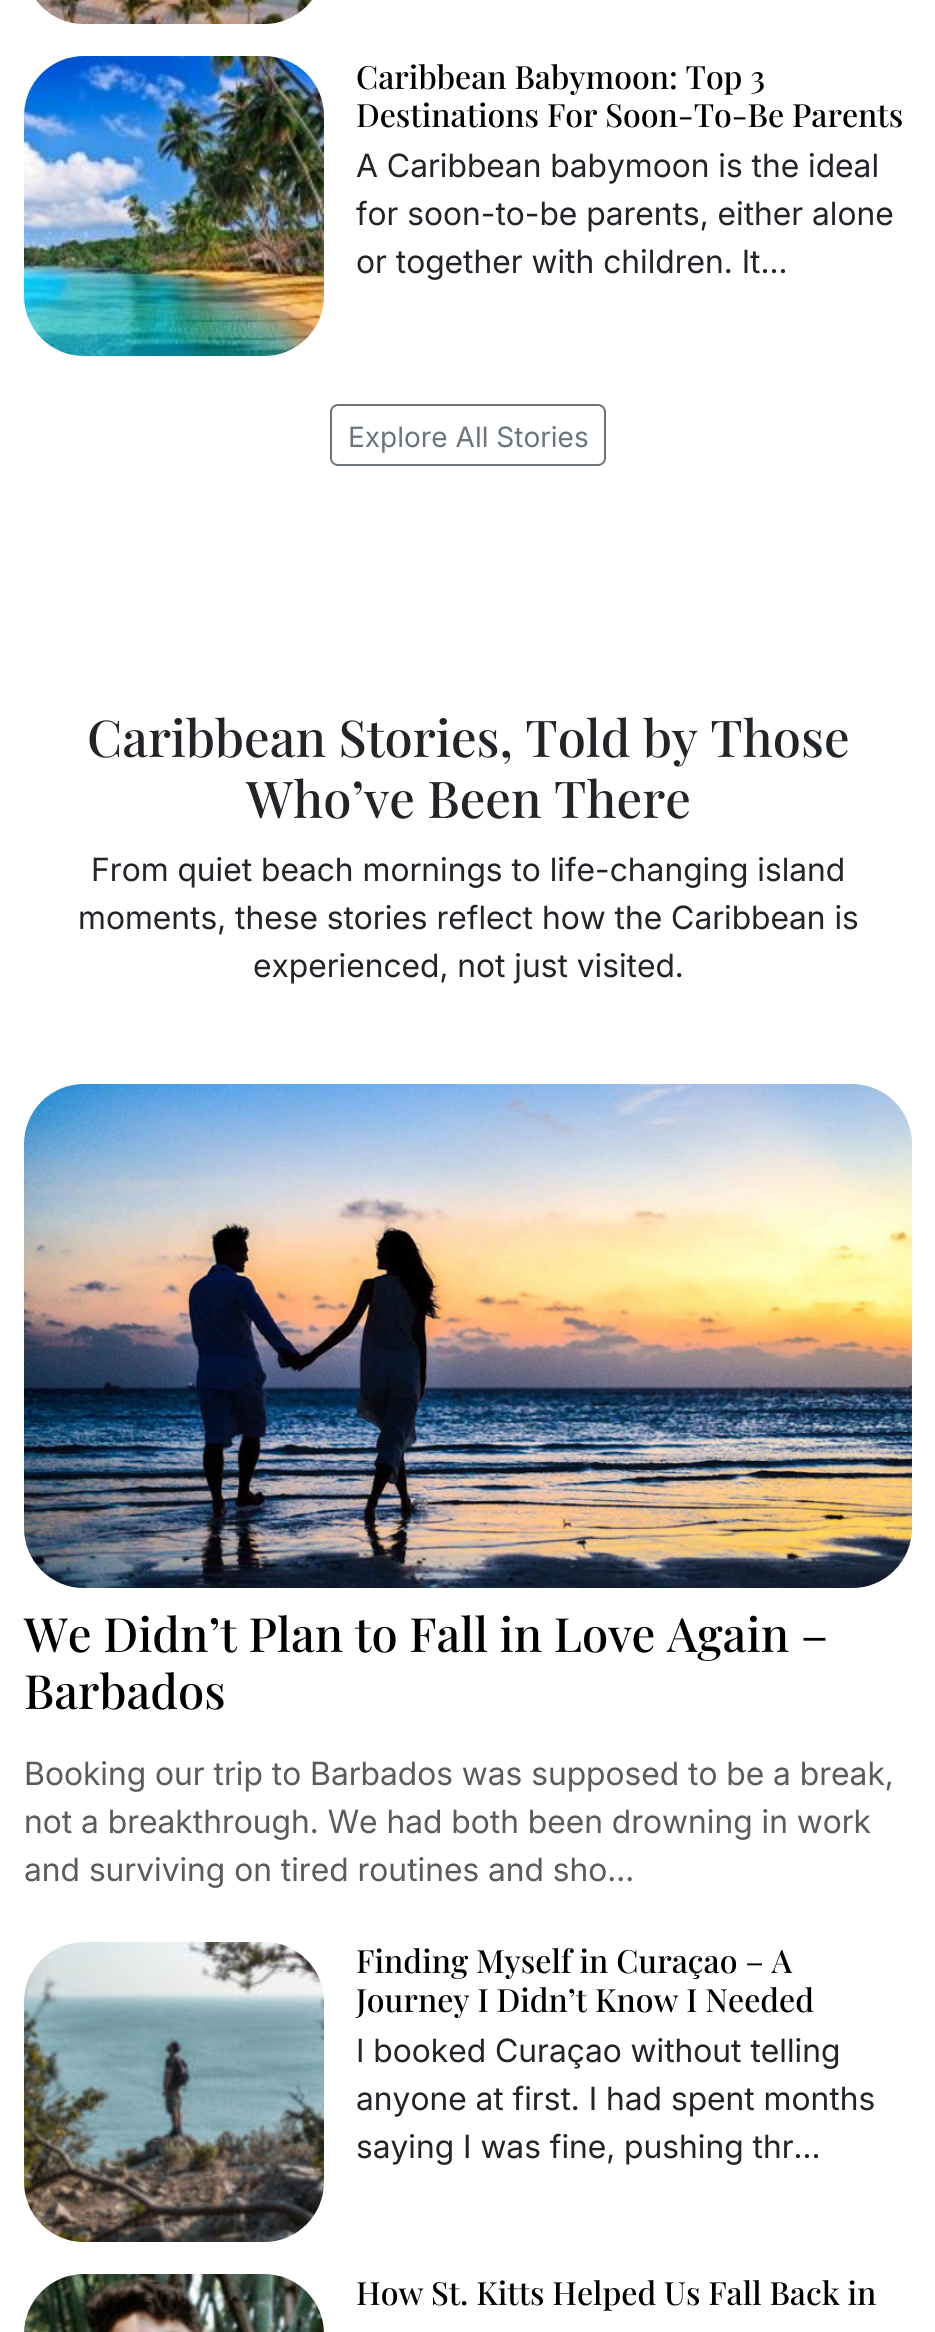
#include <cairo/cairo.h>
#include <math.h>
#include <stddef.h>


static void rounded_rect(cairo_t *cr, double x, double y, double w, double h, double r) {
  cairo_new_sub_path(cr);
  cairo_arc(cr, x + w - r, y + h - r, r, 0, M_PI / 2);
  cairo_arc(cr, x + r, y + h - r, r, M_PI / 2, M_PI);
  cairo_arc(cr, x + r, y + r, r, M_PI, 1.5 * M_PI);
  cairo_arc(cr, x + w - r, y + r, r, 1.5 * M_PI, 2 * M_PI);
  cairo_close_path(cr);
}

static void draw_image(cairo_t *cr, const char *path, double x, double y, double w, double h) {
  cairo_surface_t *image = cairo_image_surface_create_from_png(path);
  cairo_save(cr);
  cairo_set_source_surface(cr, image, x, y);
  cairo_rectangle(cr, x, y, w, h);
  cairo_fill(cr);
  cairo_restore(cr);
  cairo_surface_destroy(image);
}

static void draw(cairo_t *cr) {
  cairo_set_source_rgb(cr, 1, 1, 1);
  cairo_paint(cr);
  draw_image(cr, "images/1.png", 36, 0, 276, 24);
  draw_image(cr, "images/2.png", 24, 56, 300, 300);
  rounded_rect(cr, 331, 405, 274, 60, 7);
  cairo_set_source_rgb(cr, 108 / 255.0, 117 / 255.0, 125 / 255.0);
  cairo_stroke(cr);
  draw_image(cr, "images/3.png", 24, 1084, 888, 504);
  draw_image(cr, "images/4.png", 24, 1942, 300, 300);
  draw_image(cr, "images/5.png", 24, 2274, 300, 58);
  cairo_select_font_face(cr, "Playfair Display Medium", CAIRO_FONT_SLANT_NORMAL, CAIRO_FONT_WEIGHT_NORMAL);
  cairo_set_font_size(cr, 32);
  cairo_set_source_rgb(cr, 0, 0, 0);
  cairo_move_to(cr, 356, 89);
  cairo_show_text(cr, "Caribbean Babymoon: Top 3");
  cairo_move_to(cr, 356, 127);
  cairo_show_text(cr, "Destinations For Soon-To-Be Parents");
  cairo_select_font_face(cr, "Inter", CAIRO_FONT_SLANT_NORMAL, CAIRO_FONT_WEIGHT_NORMAL);
  cairo_set_source_rgb(cr, 33 / 255.0, 37 / 255.0, 41 / 255.0);
  cairo_move_to(cr, 356, 177);
  cairo_show_text(cr, "A Caribbean babymoon is the ideal");
  cairo_move_to(cr, 356, 225);
  cairo_show_text(cr, "for soon-to-be parents, either alone");
  cairo_move_to(cr, 356, 273);
  cairo_show_text(cr, "or together with children. It...");
  cairo_select_font_face(cr, "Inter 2", CAIRO_FONT_SLANT_NORMAL, CAIRO_FONT_WEIGHT_NORMAL);
  cairo_set_font_size(cr, 28);
  cairo_set_source_rgb(cr, 108 / 255.0, 117 / 255.0, 125 / 255.0);
  cairo_move_to(cr, 348, 447);
  cairo_show_text(cr, "Explore All Stories");
  cairo_select_font_face(cr, "Playfair Display Medium", CAIRO_FONT_SLANT_NORMAL, CAIRO_FONT_WEIGHT_NORMAL);
  cairo_set_font_size(cr, 50.8);
  cairo_set_source_rgb(cr, 33 / 255.0, 37 / 255.0, 41 / 255.0);
  cairo_move_to(cr, 87, 757);
  cairo_show_text(cr, "Caribbean Stories, Told by Those");
  cairo_move_to(cr, 246, 818);
  cairo_show_text(cr, "Who’ve Been There");
  cairo_select_font_face(cr, "Inter", CAIRO_FONT_SLANT_NORMAL, CAIRO_FONT_WEIGHT_NORMAL);
  cairo_set_font_size(cr, 32);
  cairo_move_to(cr, 91, 881);
  cairo_show_text(cr, "From quiet beach mornings to life-changing island");
  cairo_move_to(cr, 78, 929);
  cairo_show_text(cr, "moments, these stories reflect how the Caribbean is");
  cairo_move_to(cr, 253, 977);
  cairo_show_text(cr, "experienced, not just visited.");
  cairo_select_font_face(cr, "Playfair Display Medium", CAIRO_FONT_SLANT_NORMAL, CAIRO_FONT_WEIGHT_NORMAL);
  cairo_set_font_size(cr, 47.25);
  cairo_set_source_rgb(cr, 0, 0, 0);
  cairo_move_to(cr, 24, 1652);
  cairo_show_text(cr, "We Didn’t Plan to Fall in Love Again –");
  cairo_move_to(cr, 24, 1709);
  cairo_show_text(cr, "Barbados");
  cairo_select_font_face(cr, "Inter", CAIRO_FONT_SLANT_NORMAL, CAIRO_FONT_WEIGHT_NORMAL);
  cairo_set_font_size(cr, 32);
  cairo_set_source_rgb(cr, 89 / 255.0, 92 / 255.0, 95 / 255.0);
  cairo_move_to(cr, 24, 1785);
  cairo_show_text(cr, "Booking our trip to Barbados was supposed to be a break,");
  cairo_move_to(cr, 24, 1833);
  cairo_show_text(cr, "not a breakthrough. We had both been drowning in work");
  cairo_move_to(cr, 24, 1881);
  cairo_show_text(cr, "and surviving on tired routines and sho...");
  cairo_select_font_face(cr, "Playfair Display Medium", CAIRO_FONT_SLANT_NORMAL, CAIRO_FONT_WEIGHT_NORMAL);
  cairo_set_source_rgb(cr, 0, 0, 0);
  cairo_move_to(cr, 356, 1973);
  cairo_show_text(cr, "Finding Myself in Curaçao – A");
  cairo_move_to(cr, 356, 2012);
  cairo_show_text(cr, "Journey I Didn’t Know I Needed");
  cairo_select_font_face(cr, "Inter", CAIRO_FONT_SLANT_NORMAL, CAIRO_FONT_WEIGHT_NORMAL);
  cairo_set_source_rgb(cr, 33 / 255.0, 37 / 255.0, 41 / 255.0);
  cairo_move_to(cr, 356, 2062);
  cairo_show_text(cr, "I booked Curaçao without telling");
  cairo_move_to(cr, 356, 2110);
  cairo_show_text(cr, "anyone at first. I had spent months");
  cairo_move_to(cr, 356, 2158);
  cairo_show_text(cr, "saying I was fine, pushing thr...");
  cairo_select_font_face(cr, "Playfair Display Medium", CAIRO_FONT_SLANT_NORMAL, CAIRO_FONT_WEIGHT_NORMAL);
  cairo_set_source_rgb(cr, 0, 0, 0);
  cairo_move_to(cr, 356, 2305);
  cairo_show_text(cr, "How St. Kitts Helped Us Fall Back in");
}

int main(void) {
  cairo_surface_t *surface = cairo_image_surface_create(CAIRO_FORMAT_RGB24, 935, 2332);
  cairo_t *cr = cairo_create(surface);
  cairo_font_options_t *options = cairo_font_options_create();
  cairo_font_options_set_hint_metrics(options, CAIRO_HINT_METRICS_OFF);
  cairo_font_options_set_hint_style(options, CAIRO_HINT_STYLE_NONE);
  cairo_set_font_options(cr, options);
  cairo_set_miter_limit(cr, 4);
  draw(cr);
  cairo_surface_write_to_png(surface, "out.png");
  cairo_font_options_destroy(options);
  cairo_destroy(cr);
  cairo_surface_destroy(surface);
  return 0;
}
